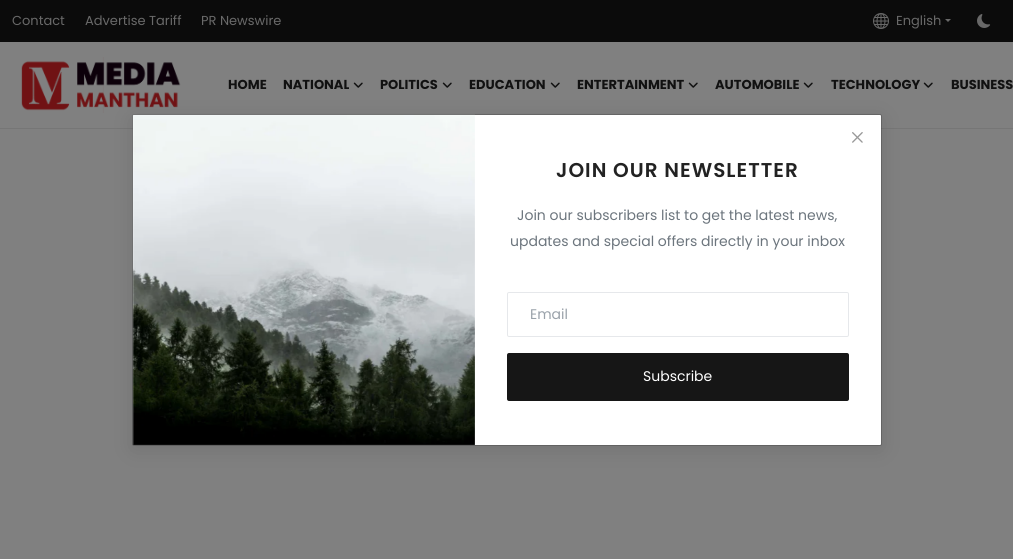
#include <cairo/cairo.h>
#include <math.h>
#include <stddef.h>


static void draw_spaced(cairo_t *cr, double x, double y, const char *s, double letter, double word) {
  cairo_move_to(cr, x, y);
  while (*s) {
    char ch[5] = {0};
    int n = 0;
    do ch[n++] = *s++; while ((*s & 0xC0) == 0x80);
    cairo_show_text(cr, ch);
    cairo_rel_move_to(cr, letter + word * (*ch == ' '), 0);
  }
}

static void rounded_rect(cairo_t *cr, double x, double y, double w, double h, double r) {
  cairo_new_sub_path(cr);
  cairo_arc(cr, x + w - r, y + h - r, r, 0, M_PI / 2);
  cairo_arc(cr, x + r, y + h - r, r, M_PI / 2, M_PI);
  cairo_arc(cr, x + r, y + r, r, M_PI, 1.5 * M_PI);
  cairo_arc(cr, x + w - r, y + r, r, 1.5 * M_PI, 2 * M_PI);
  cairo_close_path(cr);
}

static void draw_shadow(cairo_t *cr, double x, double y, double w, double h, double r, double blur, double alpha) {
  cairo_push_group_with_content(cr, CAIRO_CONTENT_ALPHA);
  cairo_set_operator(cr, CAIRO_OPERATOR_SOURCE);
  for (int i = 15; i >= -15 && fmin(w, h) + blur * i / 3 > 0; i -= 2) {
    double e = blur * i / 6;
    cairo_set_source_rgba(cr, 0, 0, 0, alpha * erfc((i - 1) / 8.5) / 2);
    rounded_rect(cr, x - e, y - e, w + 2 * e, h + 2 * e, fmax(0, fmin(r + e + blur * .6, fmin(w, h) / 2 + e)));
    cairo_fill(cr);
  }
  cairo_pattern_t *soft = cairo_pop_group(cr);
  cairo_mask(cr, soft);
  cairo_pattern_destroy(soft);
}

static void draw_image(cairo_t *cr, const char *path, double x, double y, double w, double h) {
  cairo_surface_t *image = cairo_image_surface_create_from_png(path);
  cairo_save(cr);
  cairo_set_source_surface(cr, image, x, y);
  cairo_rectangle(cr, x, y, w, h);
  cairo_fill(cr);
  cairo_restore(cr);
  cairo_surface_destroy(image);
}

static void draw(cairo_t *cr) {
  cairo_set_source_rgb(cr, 128 / 255.0, 128 / 255.0, 128 / 255.0);
  cairo_paint(cr);
  cairo_set_source_rgb(cr, 11 / 255.0, 11 / 255.0, 11 / 255.0);
  cairo_rectangle(cr, 0, 0, 1013, 42);
  cairo_fill(cr);
  draw_image(cr, "images/1.png", 873, 13, 16, 16);
  cairo_set_source_rgb(cr, 105 / 255.0, 105 / 255.0, 105 / 255.0);
  cairo_new_path(cr);
  cairo_move_to(cr, 945, 19);
  cairo_line_to(cr, 951, 19);
  cairo_line_to(cr, 948, 22);
  cairo_close_path(cr);
  cairo_fill(cr);
  draw_image(cr, "images/2.png", 977, 14, 14, 14);
  cairo_set_source_rgb(cr, 118 / 255.0, 118 / 255.0, 118 / 255.0);
  cairo_rectangle(cr, 0, 128, 1013, 1);
  cairo_fill(cr);
  draw_image(cr, "images/3.png", 21, 57, 160, 56);
  draw_image(cr, "images/4.png", 353, 82, 10, 6);
  draw_image(cr, "images/4.png", 442, 82, 10, 6);
  draw_image(cr, "images/4.png", 550, 82, 10, 6);
  draw_image(cr, "images/4.png", 688, 82, 10, 6);
  draw_image(cr, "images/4.png", 803, 82, 10, 6);
  draw_image(cr, "images/4.png", 923, 82, 10, 6);
  cairo_set_source_rgb(cr, 0, 0, 0);
  draw_shadow(cr, 132, 118, 750, 332, 2, 10, 0.1);
  cairo_set_source_rgb(cr, 1, 1, 1);
  rounded_rect(cr, 133, 115, 748, 330, 1);
  cairo_fill(cr);
  rounded_rect(cr, 132.5, 114.5, 749, 331, 1.5);
  cairo_set_source_rgba(cr, 0, 0, 0, 0.18);
  cairo_set_line_width(cr, 1);
  cairo_stroke(cr);
  draw_image(cr, "images/5.png", 132, 114, 343, 331);
  draw_image(cr, "images/6.png", 852, 132, 11, 11);
  rounded_rect(cr, 507.5, 292.5, 341, 44, 1.5);
  cairo_set_source_rgb(cr, 230 / 255.0, 232 / 255.0, 235 / 255.0);
  cairo_stroke(cr);
  cairo_set_source_rgb(cr, 22 / 255.0, 22 / 255.0, 22 / 255.0);
  rounded_rect(cr, 507, 353, 342, 48, 2);
  cairo_fill(cr);
  cairo_select_font_face(cr, "Poppins", CAIRO_FONT_SLANT_NORMAL, CAIRO_FONT_WEIGHT_NORMAL);
  cairo_set_font_size(cr, 13);
  cairo_set_source_rgb(cr, 105 / 255.0, 105 / 255.0, 105 / 255.0);
  cairo_move_to(cr, 12, 25);
  cairo_show_text(cr, "Contact");
  cairo_move_to(cr, 85, 25);
  cairo_show_text(cr, "Advertise Tariff");
  cairo_move_to(cr, 201, 25);
  cairo_show_text(cr, "PR Newswire");
  cairo_move_to(cr, 896, 25);
  cairo_show_text(cr, "English");
  cairo_select_font_face(cr, "Poppins", CAIRO_FONT_SLANT_NORMAL, CAIRO_FONT_WEIGHT_BOLD);
  cairo_set_source_rgb(cr, 17 / 255.0, 17 / 255.0, 17 / 255.0);
  cairo_move_to(cr, 228, 89);
  cairo_show_text(cr, "HOME");
  cairo_move_to(cr, 283, 89);
  cairo_show_text(cr, "NATIONAL");
  cairo_move_to(cr, 380, 89);
  cairo_show_text(cr, "POLITICS");
  cairo_move_to(cr, 469, 89);
  cairo_show_text(cr, "EDUCATION");
  cairo_move_to(cr, 577, 89);
  cairo_show_text(cr, "ENTERTAINMENT");
  cairo_move_to(cr, 715, 89);
  cairo_show_text(cr, "AUTOMOBILE");
  cairo_move_to(cr, 831, 89);
  cairo_show_text(cr, "TECHNOLOGY");
  cairo_move_to(cr, 951, 89);
  cairo_show_text(cr, "BUSINESS");
  cairo_select_font_face(cr, "Poppins SemiBold", CAIRO_FONT_SLANT_NORMAL, CAIRO_FONT_WEIGHT_NORMAL);
  cairo_set_font_size(cr, 20);
  cairo_set_source_rgb(cr, 34 / 255.0, 34 / 255.0, 34 / 255.0);
  draw_spaced(cr, 556, 177, "JOIN OUR NEWSLETTER", 1, 0);
  cairo_select_font_face(cr, "Poppins", CAIRO_FONT_SLANT_NORMAL, CAIRO_FONT_WEIGHT_NORMAL);
  cairo_set_font_size(cr, 14);
  cairo_set_source_rgb(cr, 108 / 255.0, 117 / 255.0, 125 / 255.0);
  cairo_move_to(cr, 517, 220);
  cairo_show_text(cr, "Join our subscribers list to get the latest news,");
  cairo_move_to(cr, 510, 246);
  cairo_show_text(cr, "updates and special offers directly in your inbox");
  cairo_set_source_rgb(cr, 154 / 255.0, 162 / 255.0, 170 / 255.0);
  cairo_move_to(cr, 530, 319);
  cairo_show_text(cr, "Email");
  cairo_set_source_rgb(cr, 1, 1, 1);
  cairo_move_to(cr, 643, 381);
  cairo_show_text(cr, "Subscribe");
}

int main(void) {
  cairo_surface_t *surface = cairo_image_surface_create(CAIRO_FORMAT_RGB24, 1013, 559);
  cairo_t *cr = cairo_create(surface);
  cairo_font_options_t *options = cairo_font_options_create();
  cairo_font_options_set_hint_metrics(options, CAIRO_HINT_METRICS_OFF);
  cairo_font_options_set_hint_style(options, CAIRO_HINT_STYLE_NONE);
  cairo_set_font_options(cr, options);
  cairo_set_miter_limit(cr, 4);
  draw(cr);
  cairo_surface_write_to_png(surface, "out.png");
  cairo_font_options_destroy(options);
  cairo_destroy(cr);
  cairo_surface_destroy(surface);
  return 0;
}
